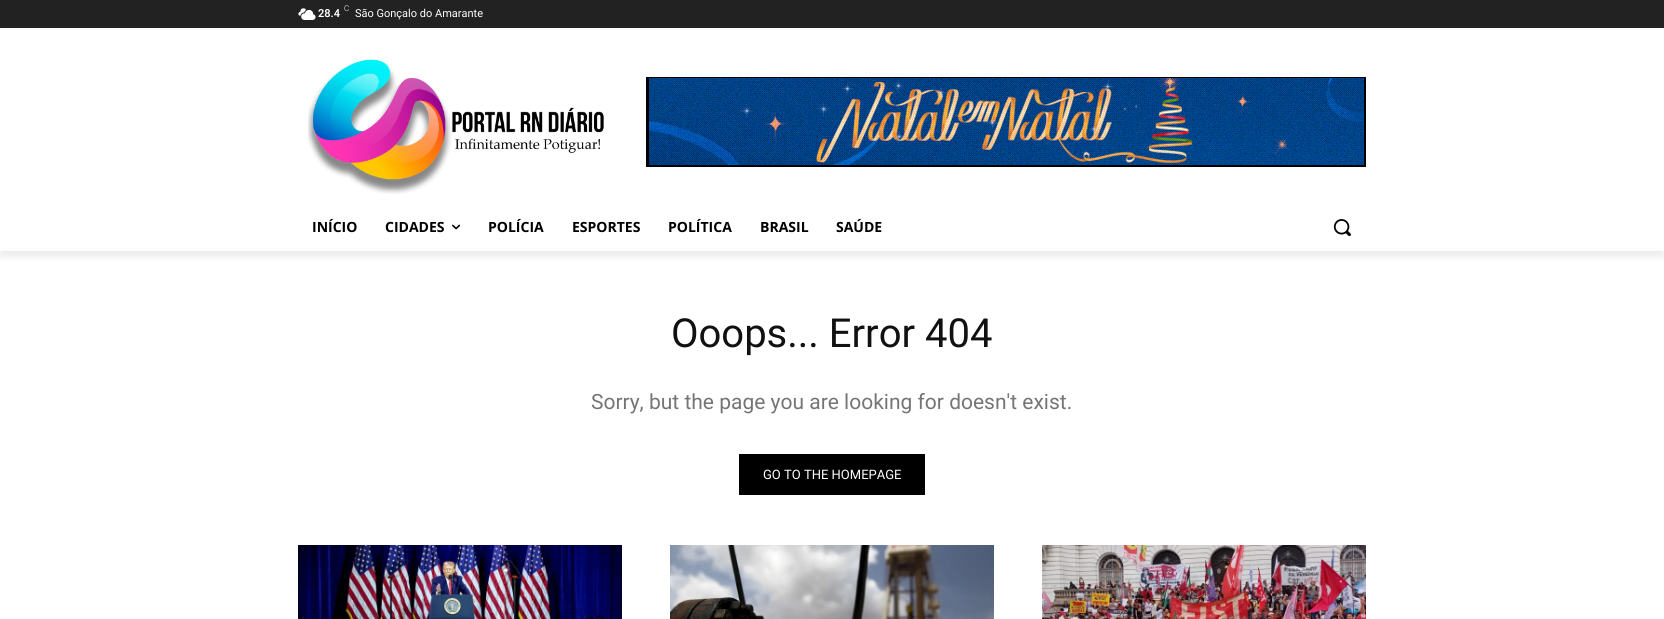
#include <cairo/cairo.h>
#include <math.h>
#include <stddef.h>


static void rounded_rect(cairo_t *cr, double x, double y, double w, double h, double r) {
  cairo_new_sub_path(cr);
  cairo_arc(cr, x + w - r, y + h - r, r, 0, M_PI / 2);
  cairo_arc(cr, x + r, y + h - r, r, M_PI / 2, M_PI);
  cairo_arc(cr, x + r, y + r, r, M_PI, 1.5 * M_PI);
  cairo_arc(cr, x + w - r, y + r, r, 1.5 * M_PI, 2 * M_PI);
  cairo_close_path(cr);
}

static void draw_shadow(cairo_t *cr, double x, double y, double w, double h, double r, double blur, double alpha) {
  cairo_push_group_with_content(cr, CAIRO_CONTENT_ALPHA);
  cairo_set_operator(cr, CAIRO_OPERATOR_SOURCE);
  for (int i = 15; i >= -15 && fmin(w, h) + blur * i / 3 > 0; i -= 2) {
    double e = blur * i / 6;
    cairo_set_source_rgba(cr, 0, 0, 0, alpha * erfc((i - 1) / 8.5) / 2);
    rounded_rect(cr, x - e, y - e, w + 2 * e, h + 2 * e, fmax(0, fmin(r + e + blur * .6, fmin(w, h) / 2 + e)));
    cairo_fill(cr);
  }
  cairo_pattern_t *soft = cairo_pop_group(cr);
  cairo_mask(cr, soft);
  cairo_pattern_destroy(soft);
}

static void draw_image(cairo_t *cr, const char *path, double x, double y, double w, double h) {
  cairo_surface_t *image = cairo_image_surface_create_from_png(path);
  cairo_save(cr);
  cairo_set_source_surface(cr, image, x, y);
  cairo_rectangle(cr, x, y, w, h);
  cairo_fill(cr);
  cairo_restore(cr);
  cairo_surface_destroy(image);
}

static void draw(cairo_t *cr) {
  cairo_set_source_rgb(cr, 1, 1, 1);
  cairo_paint(cr);
  cairo_set_source_rgb(cr, 34 / 255.0, 34 / 255.0, 34 / 255.0);
  cairo_rectangle(cr, 0, 0, 1664, 28);
  cairo_fill(cr);
  draw_image(cr, "images/1.png", 298, 8, 18, 12);
  draw_image(cr, "images/2.png", 308, 59, 296, 135);
  draw_image(cr, "images/3.png", 646, 77, 720, 90);
  cairo_save(cr);
  cairo_rectangle(cr, 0, 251, 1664, 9);
  cairo_clip(cr);
  cairo_set_source_rgb(cr, 0, 0, 0);
  draw_shadow(cr, 0, 6, 1664, 251, 0, 4, 0.08);
  cairo_restore(cr);
  draw_image(cr, "images/4.png", 452, 224, 9, 6);
  draw_image(cr, "images/5.png", 1333, 219, 18, 18);
  cairo_set_source_rgb(cr, 0, 0, 0);
  cairo_rectangle(cr, 739, 454, 186, 41);
  cairo_fill(cr);
  draw_image(cr, "images/6.png", 298, 545, 324, 74);
  draw_image(cr, "images/7.png", 670, 545, 324, 74);
  draw_image(cr, "images/8.png", 1042, 545, 324, 74);
  cairo_select_font_face(cr, "Roboto SemiBold", CAIRO_FONT_SLANT_NORMAL, CAIRO_FONT_WEIGHT_NORMAL);
  cairo_set_font_size(cr, 11);
  cairo_set_source_rgb(cr, 1, 1, 1);
  cairo_move_to(cr, 318, 17);
  cairo_show_text(cr, "28.4");
  cairo_select_font_face(cr, "Roboto Light", CAIRO_FONT_SLANT_NORMAL, CAIRO_FONT_WEIGHT_NORMAL);
  cairo_set_font_size(cr, 8);
  cairo_move_to(cr, 344, 11);
  cairo_show_text(cr, "C");
  cairo_select_font_face(cr, "Roboto", CAIRO_FONT_SLANT_NORMAL, CAIRO_FONT_WEIGHT_NORMAL);
  cairo_set_font_size(cr, 11);
  cairo_move_to(cr, 355, 17);
  cairo_show_text(cr, "São Gonçalo do Amarante");
  cairo_select_font_face(cr, "Open Sans", CAIRO_FONT_SLANT_NORMAL, CAIRO_FONT_WEIGHT_BOLD);
  cairo_set_font_size(cr, 14);
  cairo_set_source_rgb(cr, 0, 0, 0);
  cairo_move_to(cr, 312, 232);
  cairo_show_text(cr, "INÍCIO");
  cairo_move_to(cr, 385, 232);
  cairo_show_text(cr, "CIDADES");
  cairo_move_to(cr, 488, 232);
  cairo_show_text(cr, "POLÍCIA");
  cairo_move_to(cr, 572, 232);
  cairo_show_text(cr, "ESPORTES");
  cairo_move_to(cr, 668, 232);
  cairo_show_text(cr, "POLÍTICA");
  cairo_move_to(cr, 760, 232);
  cairo_show_text(cr, "BRASIL");
  cairo_move_to(cr, 836, 232);
  cairo_show_text(cr, "SAÚDE");
  cairo_select_font_face(cr, "Roboto", CAIRO_FONT_SLANT_NORMAL, CAIRO_FONT_WEIGHT_NORMAL);
  cairo_set_font_size(cr, 40);
  cairo_set_source_rgb(cr, 17 / 255.0, 17 / 255.0, 17 / 255.0);
  cairo_move_to(cr, 671, 347);
  cairo_show_text(cr, "Ooops... Error 404");
  cairo_set_font_size(cr, 21);
  cairo_set_source_rgb(cr, 117 / 255.0, 117 / 255.0, 117 / 255.0);
  cairo_move_to(cr, 591, 409);
  cairo_show_text(cr, "Sorry, but the page you are looking for doesn't exist.");
  cairo_set_font_size(cr, 13);
  cairo_set_source_rgb(cr, 1, 1, 1);
  cairo_move_to(cr, 763, 479);
  cairo_show_text(cr, "GO TO THE HOMEPAGE");
}

int main(void) {
  cairo_surface_t *surface = cairo_image_surface_create(CAIRO_FORMAT_RGB24, 1664, 619);
  cairo_t *cr = cairo_create(surface);
  cairo_font_options_t *options = cairo_font_options_create();
  cairo_font_options_set_hint_metrics(options, CAIRO_HINT_METRICS_OFF);
  cairo_font_options_set_hint_style(options, CAIRO_HINT_STYLE_NONE);
  cairo_set_font_options(cr, options);
  cairo_set_miter_limit(cr, 4);
  draw(cr);
  cairo_surface_write_to_png(surface, "out.png");
  cairo_font_options_destroy(options);
  cairo_destroy(cr);
  cairo_surface_destroy(surface);
  return 0;
}
